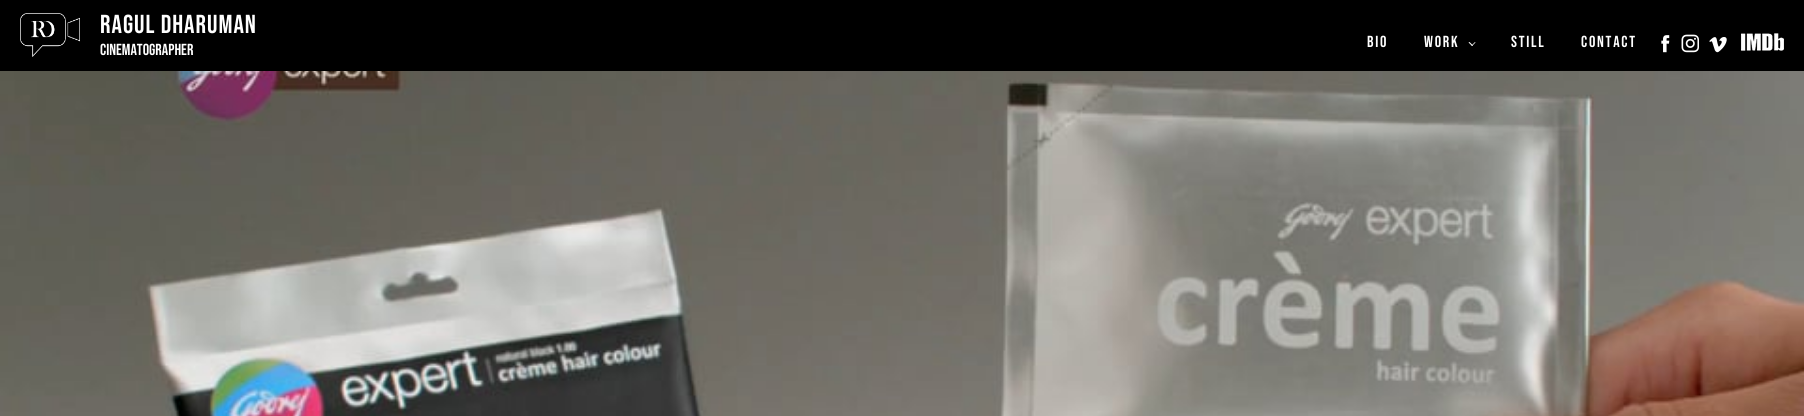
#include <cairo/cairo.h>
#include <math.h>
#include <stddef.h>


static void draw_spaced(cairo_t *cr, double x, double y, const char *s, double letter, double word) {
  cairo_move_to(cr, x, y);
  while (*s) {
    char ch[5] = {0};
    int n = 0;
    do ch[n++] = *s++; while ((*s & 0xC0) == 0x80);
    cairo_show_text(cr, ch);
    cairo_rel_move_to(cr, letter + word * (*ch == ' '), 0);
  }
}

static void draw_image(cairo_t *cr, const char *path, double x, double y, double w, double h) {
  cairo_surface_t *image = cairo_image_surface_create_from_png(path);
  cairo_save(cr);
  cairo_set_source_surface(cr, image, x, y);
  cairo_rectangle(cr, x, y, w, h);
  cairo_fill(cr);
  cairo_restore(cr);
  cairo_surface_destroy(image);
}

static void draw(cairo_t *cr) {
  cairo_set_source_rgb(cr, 0, 0, 0);
  cairo_paint(cr);
  draw_image(cr, "images/1.png", 20, 13, 60, 44);
  cairo_set_source_rgb(cr, 1, 1, 1);
  cairo_new_path(cr);
  cairo_move_to(cr, 1475, 42);
  cairo_line_to(cr, 1475.5, 42.5);
  cairo_line_to(cr, 1472, 46);
  cairo_line_to(cr, 1471.5, 45.5);
  cairo_close_path(cr);
  cairo_fill(cr);
  cairo_new_path(cr);
  cairo_move_to(cr, 1469.5, 42);
  cairo_line_to(cr, 1473, 45.5);
  cairo_line_to(cr, 1472, 46);
  cairo_line_to(cr, 1468.5, 42.5);
  cairo_close_path(cr);
  cairo_fill(cr);
  draw_image(cr, "images/2.png", 1661, 35, 9, 18);
  draw_image(cr, "images/3.png", 1681, 34, 18, 19);
  draw_image(cr, "images/4.png", 1709, 37, 18, 16);
  draw_image(cr, "images/5.png", 1741, 33, 43, 18);
  draw_image(cr, "images/6.png", 0, 71, 1804, 345);
  cairo_select_font_face(cr, "Bebas Neue", CAIRO_FONT_SLANT_NORMAL, CAIRO_FONT_WEIGHT_NORMAL);
  cairo_set_font_size(cr, 26);
  draw_spaced(cr, 100, 33, "Ragul Dharuman", 1, 0);
  cairo_set_font_size(cr, 16);
  cairo_move_to(cr, 100, 55);
  cairo_show_text(cr, "Cinematographer");
  draw_spaced(cr, 1367, 47, "BIO", 1.75, 0);
  draw_spaced(cr, 1424, 47, "WORK", 1.75, 0);
  draw_spaced(cr, 1511, 47, "STILL", 1.75, 0);
  draw_spaced(cr, 1581, 47, "CONTACT", 1.75, 0);
}

int main(void) {
  cairo_surface_t *surface = cairo_image_surface_create(CAIRO_FORMAT_RGB24, 1804, 416);
  cairo_t *cr = cairo_create(surface);
  cairo_font_options_t *options = cairo_font_options_create();
  cairo_font_options_set_hint_metrics(options, CAIRO_HINT_METRICS_OFF);
  cairo_font_options_set_hint_style(options, CAIRO_HINT_STYLE_NONE);
  cairo_set_font_options(cr, options);
  cairo_set_miter_limit(cr, 4);
  draw(cr);
  cairo_surface_write_to_png(surface, "out.png");
  cairo_font_options_destroy(options);
  cairo_destroy(cr);
  cairo_surface_destroy(surface);
  return 0;
}
